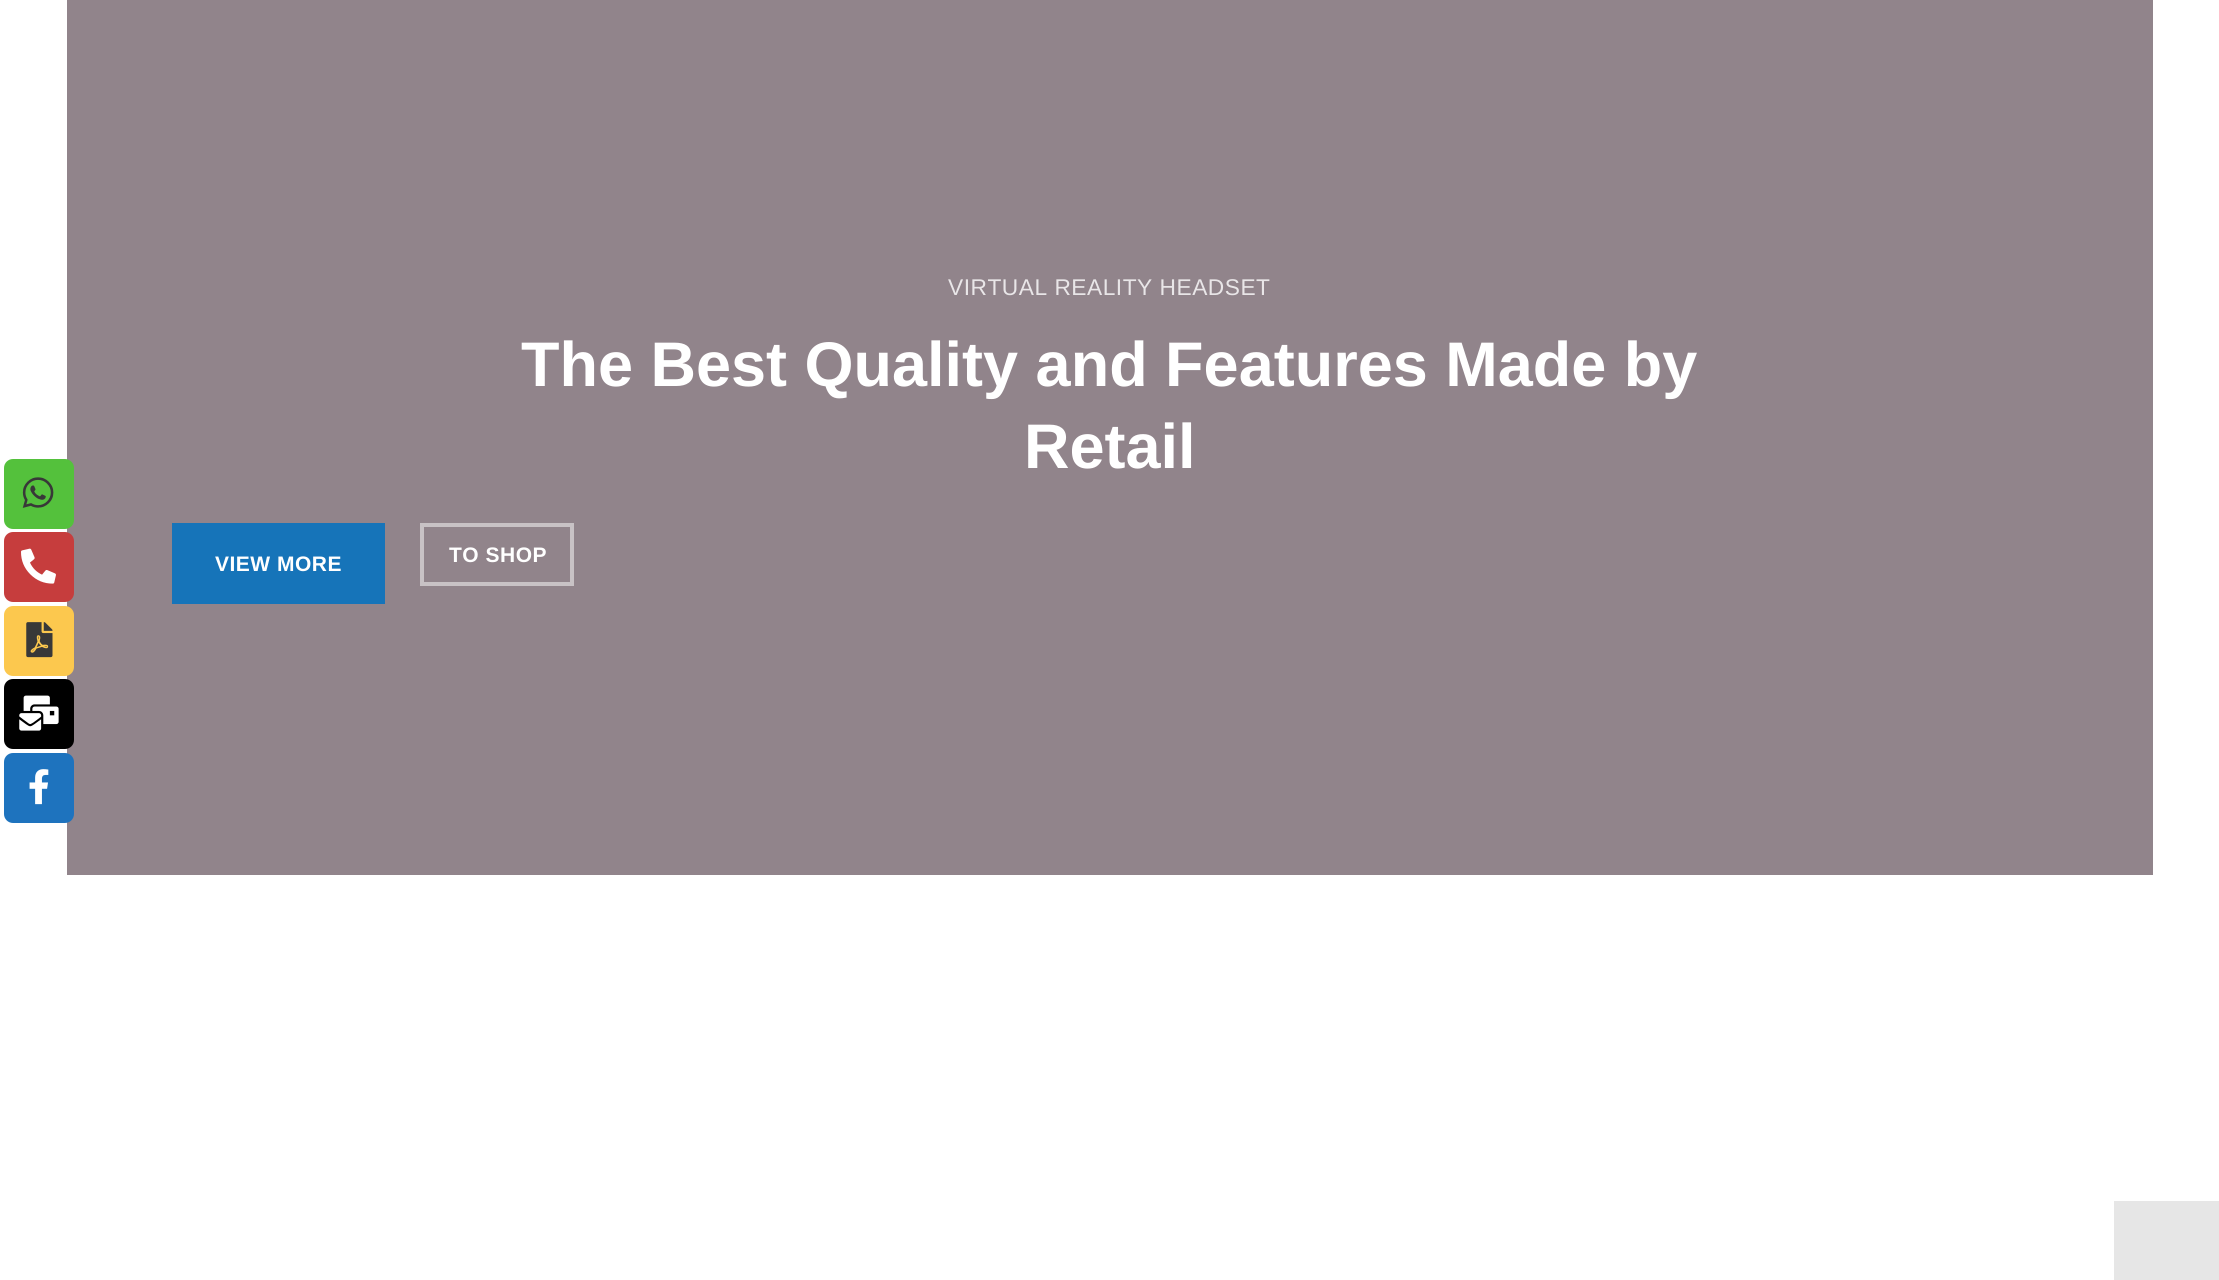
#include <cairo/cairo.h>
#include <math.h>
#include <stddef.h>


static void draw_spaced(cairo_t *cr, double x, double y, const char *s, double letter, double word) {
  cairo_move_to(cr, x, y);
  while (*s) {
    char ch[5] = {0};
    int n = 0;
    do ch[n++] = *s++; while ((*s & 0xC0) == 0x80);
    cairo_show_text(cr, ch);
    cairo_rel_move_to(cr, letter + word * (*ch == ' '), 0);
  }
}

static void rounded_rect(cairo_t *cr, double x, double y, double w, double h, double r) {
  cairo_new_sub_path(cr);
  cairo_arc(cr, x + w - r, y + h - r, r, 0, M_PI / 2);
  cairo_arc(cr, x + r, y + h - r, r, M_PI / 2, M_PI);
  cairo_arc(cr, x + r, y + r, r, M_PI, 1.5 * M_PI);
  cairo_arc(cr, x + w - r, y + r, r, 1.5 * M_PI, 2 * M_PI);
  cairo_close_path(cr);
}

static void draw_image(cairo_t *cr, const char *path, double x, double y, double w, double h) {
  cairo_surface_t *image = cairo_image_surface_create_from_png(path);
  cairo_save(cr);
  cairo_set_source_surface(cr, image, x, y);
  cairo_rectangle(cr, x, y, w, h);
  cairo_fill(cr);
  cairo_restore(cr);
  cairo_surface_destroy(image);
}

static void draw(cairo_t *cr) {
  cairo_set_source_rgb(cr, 1, 1, 1);
  cairo_paint(cr);
  cairo_set_source_rgb(cr, 145 / 255.0, 132 / 255.0, 139 / 255.0);
  cairo_rectangle(cr, 67, 0, 2086, 875);
  cairo_fill(cr);
  cairo_set_source_rgb(cr, 22 / 255.0, 116 / 255.0, 185 / 255.0);
  cairo_rectangle(cr, 172, 523, 213, 81);
  cairo_fill(cr);
  cairo_rectangle(cr, 422, 525, 150, 59);
  cairo_set_source_rgb(cr, 200 / 255.0, 194 / 255.0, 197 / 255.0);
  cairo_set_line_width(cr, 4);
  cairo_stroke(cr);
  cairo_set_source_rgb(cr, 84 / 255.0, 193 / 255.0, 60 / 255.0);
  rounded_rect(cr, 4, 459, 70, 70, 9);
  cairo_fill(cr);
  draw_image(cr, "images/1.png", 22, 477, 32, 31);
  cairo_set_source_rgb(cr, 198 / 255.0, 61 / 255.0, 61 / 255.0);
  rounded_rect(cr, 4, 532, 70, 70, 9);
  cairo_fill(cr);
  draw_image(cr, "images/2.png", 21, 548, 35, 36);
  cairo_set_source_rgb(cr, 252 / 255.0, 200 / 255.0, 78 / 255.0);
  rounded_rect(cr, 4, 606, 70, 70, 9);
  cairo_fill(cr);
  draw_image(cr, "images/3.png", 26, 622, 27, 36);
  cairo_set_source_rgb(cr, 0, 0, 0);
  rounded_rect(cr, 4, 679, 70, 70, 9);
  cairo_fill(cr);
  draw_image(cr, "images/4.png", 19, 695, 40, 36);
  cairo_set_source_rgb(cr, 30 / 255.0, 115 / 255.0, 190 / 255.0);
  rounded_rect(cr, 4, 753, 70, 70, 9);
  cairo_fill(cr);
  draw_image(cr, "images/5.png", 29, 769, 20, 36);
  cairo_set_source_rgb(cr, 230 / 255.0, 230 / 255.0, 230 / 255.0);
  cairo_rectangle(cr, 2114, 1201, 105, 79);
  cairo_fill(cr);
  cairo_select_font_face(cr, "Liberation Sans", CAIRO_FONT_SLANT_NORMAL, CAIRO_FONT_WEIGHT_NORMAL);
  cairo_set_font_size(cr, 22.75);
  cairo_set_source_rgb(cr, 233 / 255.0, 230 / 255.0, 232 / 255.0);
  draw_spaced(cr, 948, 295, "VIRTUAL REALITY HEADSET", 0.5, 0);
  cairo_select_font_face(cr, "Liberation Sans", CAIRO_FONT_SLANT_NORMAL, CAIRO_FONT_WEIGHT_BOLD);
  cairo_set_font_size(cr, 63);
  cairo_set_source_rgb(cr, 1, 1, 1);
  cairo_move_to(cr, 521, 386);
  cairo_show_text(cr, "The Best Quality and Features Made by");
  cairo_move_to(cr, 1024, 468);
  cairo_show_text(cr, "Retail");
  cairo_set_font_size(cr, 21);
  draw_spaced(cr, 215, 571, "VIEW MORE", 0.5, 0);
  draw_spaced(cr, 449, 562, "TO SHOP", 0.5, 0);
}

int main(void) {
  cairo_surface_t *surface = cairo_image_surface_create(CAIRO_FORMAT_RGB24, 2219, 1280);
  cairo_t *cr = cairo_create(surface);
  cairo_font_options_t *options = cairo_font_options_create();
  cairo_font_options_set_hint_metrics(options, CAIRO_HINT_METRICS_OFF);
  cairo_font_options_set_hint_style(options, CAIRO_HINT_STYLE_NONE);
  cairo_set_font_options(cr, options);
  cairo_set_miter_limit(cr, 4);
  draw(cr);
  cairo_surface_write_to_png(surface, "out.png");
  cairo_font_options_destroy(options);
  cairo_destroy(cr);
  cairo_surface_destroy(surface);
  return 0;
}
